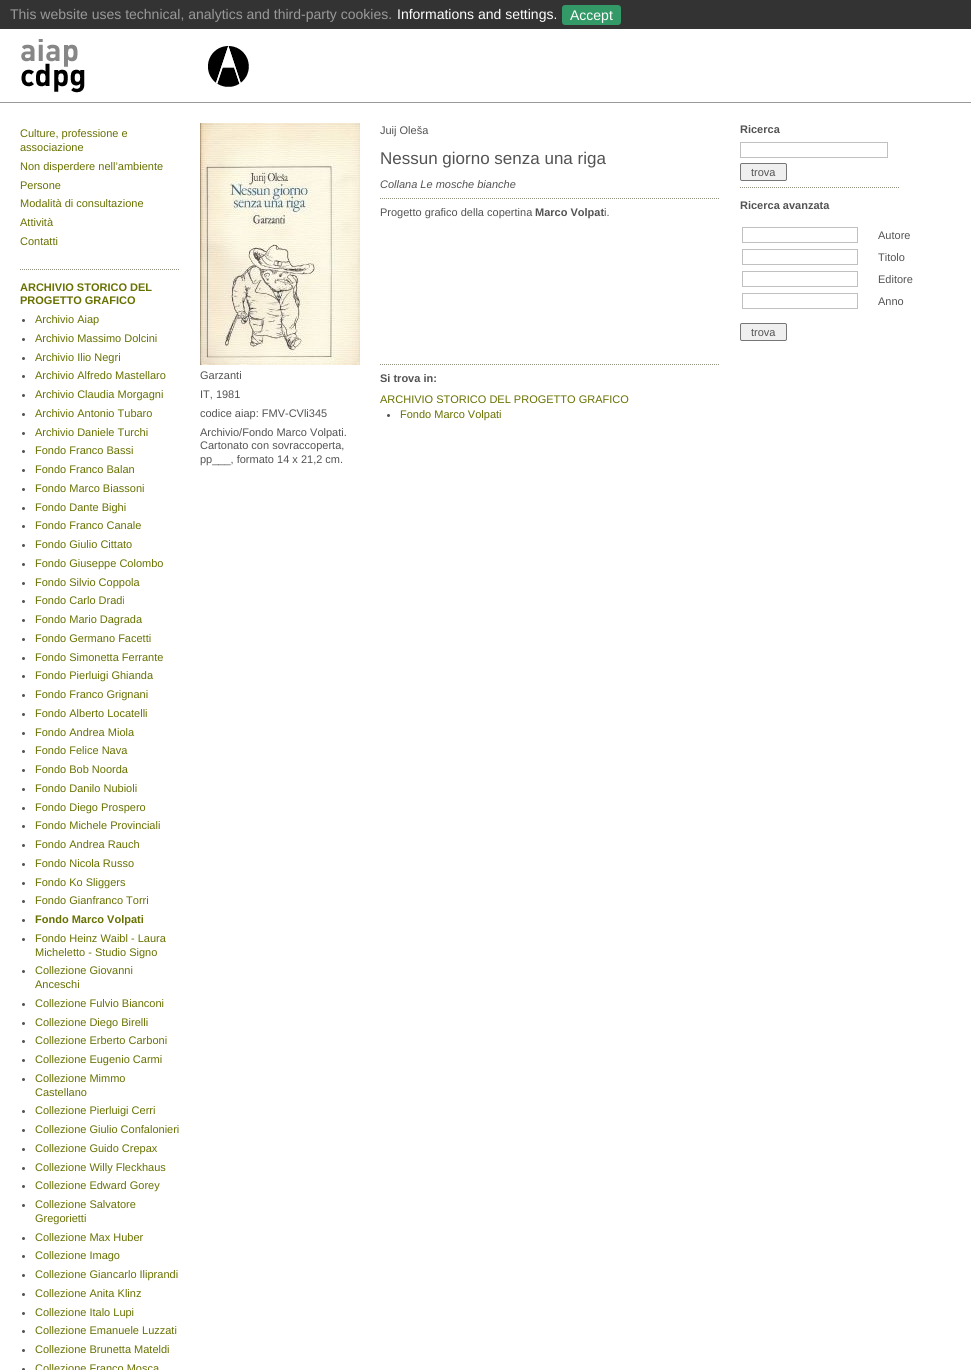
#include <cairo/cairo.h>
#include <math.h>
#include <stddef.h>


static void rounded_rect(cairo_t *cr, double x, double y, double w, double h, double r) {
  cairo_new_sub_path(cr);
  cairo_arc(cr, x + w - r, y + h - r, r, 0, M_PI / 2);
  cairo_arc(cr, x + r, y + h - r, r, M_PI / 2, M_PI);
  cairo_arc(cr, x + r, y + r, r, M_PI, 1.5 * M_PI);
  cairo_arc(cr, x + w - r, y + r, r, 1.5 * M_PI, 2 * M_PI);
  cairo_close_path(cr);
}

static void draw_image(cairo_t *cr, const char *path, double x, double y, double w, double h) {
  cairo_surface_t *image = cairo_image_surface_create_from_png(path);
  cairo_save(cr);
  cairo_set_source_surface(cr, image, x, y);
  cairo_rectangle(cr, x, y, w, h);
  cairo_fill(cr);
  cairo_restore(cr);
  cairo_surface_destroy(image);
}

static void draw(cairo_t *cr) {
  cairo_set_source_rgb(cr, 1, 1, 1);
  cairo_paint(cr);
  cairo_set_source_rgb(cr, 51 / 255.0, 51 / 255.0, 51 / 255.0);
  cairo_rectangle(cr, 0, 0, 971, 29);
  cairo_fill(cr);
  cairo_set_source_rgb(cr, 51 / 255.0, 153 / 255.0, 102 / 255.0);
  rounded_rect(cr, 562, 5, 59, 20, 3);
  cairo_fill(cr);
  cairo_set_source_rgb(cr, 153 / 255.0, 153 / 255.0, 153 / 255.0);
  cairo_rectangle(cr, 0, 102, 971, 1);
  cairo_fill(cr);
  draw_image(cr, "images/1.png", 21, 39, 64, 54);
  draw_image(cr, "images/2.png", 208, 46, 41, 41);
  cairo_new_path(cr);
  cairo_move_to(cr, 20, 269.5);
  cairo_line_to(cr, 180, 269.5);
  cairo_set_source_rgb(cr, 143 / 255.0, 147 / 255.0, 129 / 255.0);
  cairo_set_line_width(cr, 1);
  cairo_set_dash(cr, (double[]){1, 1}, 2, 0);
  cairo_stroke(cr);
  cairo_set_source_rgb(cr, 83 / 255.0, 83 / 255.0, 83 / 255.0);
  cairo_arc(cr, 23.5, 320.5, 1.5, 0, 2 * M_PI);
  cairo_fill(cr);
  cairo_arc(cr, 23.5, 339.5, 1.5, 0, 2 * M_PI);
  cairo_fill(cr);
  cairo_arc(cr, 23.5, 358.5, 1.5, 0, 2 * M_PI);
  cairo_fill(cr);
  cairo_arc(cr, 23.5, 376.5, 1.5, 0, 2 * M_PI);
  cairo_fill(cr);
  cairo_arc(cr, 23.5, 395.5, 1.5, 0, 2 * M_PI);
  cairo_fill(cr);
  cairo_arc(cr, 23.5, 414.5, 1.5, 0, 2 * M_PI);
  cairo_fill(cr);
  cairo_arc(cr, 23.5, 433.5, 1.5, 0, 2 * M_PI);
  cairo_fill(cr);
  cairo_arc(cr, 23.5, 451.5, 1.5, 0, 2 * M_PI);
  cairo_fill(cr);
  cairo_arc(cr, 23.5, 470.5, 1.5, 0, 2 * M_PI);
  cairo_fill(cr);
  cairo_arc(cr, 23.5, 489.5, 1.5, 0, 2 * M_PI);
  cairo_fill(cr);
  cairo_arc(cr, 23.5, 508.5, 1.5, 0, 2 * M_PI);
  cairo_fill(cr);
  cairo_arc(cr, 23.5, 526.5, 1.5, 0, 2 * M_PI);
  cairo_fill(cr);
  cairo_arc(cr, 23.5, 545.5, 1.5, 0, 2 * M_PI);
  cairo_fill(cr);
  cairo_arc(cr, 23.5, 564.5, 1.5, 0, 2 * M_PI);
  cairo_fill(cr);
  cairo_arc(cr, 23.5, 583.5, 1.5, 0, 2 * M_PI);
  cairo_fill(cr);
  cairo_arc(cr, 23.5, 601.5, 1.5, 0, 2 * M_PI);
  cairo_fill(cr);
  cairo_arc(cr, 23.5, 620.5, 1.5, 0, 2 * M_PI);
  cairo_fill(cr);
  cairo_arc(cr, 23.5, 639.5, 1.5, 0, 2 * M_PI);
  cairo_fill(cr);
  cairo_arc(cr, 23.5, 658.5, 1.5, 0, 2 * M_PI);
  cairo_fill(cr);
  cairo_arc(cr, 23.5, 676.5, 1.5, 0, 2 * M_PI);
  cairo_fill(cr);
  cairo_arc(cr, 23.5, 695.5, 1.5, 0, 2 * M_PI);
  cairo_fill(cr);
  cairo_arc(cr, 23.5, 714.5, 1.5, 0, 2 * M_PI);
  cairo_fill(cr);
  cairo_arc(cr, 23.5, 733.5, 1.5, 0, 2 * M_PI);
  cairo_fill(cr);
  cairo_arc(cr, 23.5, 751.5, 1.5, 0, 2 * M_PI);
  cairo_fill(cr);
  cairo_arc(cr, 23.5, 770.5, 1.5, 0, 2 * M_PI);
  cairo_fill(cr);
  cairo_arc(cr, 23.5, 789.5, 1.5, 0, 2 * M_PI);
  cairo_fill(cr);
  cairo_arc(cr, 23.5, 808.5, 1.5, 0, 2 * M_PI);
  cairo_fill(cr);
  cairo_arc(cr, 23.5, 826.5, 1.5, 0, 2 * M_PI);
  cairo_fill(cr);
  cairo_arc(cr, 23.5, 845.5, 1.5, 0, 2 * M_PI);
  cairo_fill(cr);
  cairo_arc(cr, 23.5, 864.5, 1.5, 0, 2 * M_PI);
  cairo_fill(cr);
  cairo_arc(cr, 23.5, 883.5, 1.5, 0, 2 * M_PI);
  cairo_fill(cr);
  cairo_arc(cr, 23.5, 901.5, 1.5, 0, 2 * M_PI);
  cairo_fill(cr);
  cairo_arc(cr, 23.5, 920.5, 1.5, 0, 2 * M_PI);
  cairo_fill(cr);
  cairo_arc(cr, 23.5, 939.5, 1.5, 0, 2 * M_PI);
  cairo_fill(cr);
  cairo_arc(cr, 23.5, 971.5, 1.5, 0, 2 * M_PI);
  cairo_fill(cr);
  cairo_arc(cr, 23.5, 1004.5, 1.5, 0, 2 * M_PI);
  cairo_fill(cr);
  cairo_arc(cr, 23.5, 1023.5, 1.5, 0, 2 * M_PI);
  cairo_fill(cr);
  cairo_arc(cr, 23.5, 1041.5, 1.5, 0, 2 * M_PI);
  cairo_fill(cr);
  cairo_arc(cr, 23.5, 1060.5, 1.5, 0, 2 * M_PI);
  cairo_fill(cr);
  cairo_arc(cr, 23.5, 1079.5, 1.5, 0, 2 * M_PI);
  cairo_fill(cr);
  cairo_arc(cr, 23.5, 1111.5, 1.5, 0, 2 * M_PI);
  cairo_fill(cr);
  cairo_arc(cr, 23.5, 1130.5, 1.5, 0, 2 * M_PI);
  cairo_fill(cr);
  cairo_arc(cr, 23.5, 1149.5, 1.5, 0, 2 * M_PI);
  cairo_fill(cr);
  cairo_arc(cr, 23.5, 1168.5, 1.5, 0, 2 * M_PI);
  cairo_fill(cr);
  cairo_arc(cr, 23.5, 1186.5, 1.5, 0, 2 * M_PI);
  cairo_fill(cr);
  cairo_arc(cr, 23.5, 1205.5, 1.5, 0, 2 * M_PI);
  cairo_fill(cr);
  cairo_arc(cr, 23.5, 1238.5, 1.5, 0, 2 * M_PI);
  cairo_fill(cr);
  cairo_arc(cr, 23.5, 1256.5, 1.5, 0, 2 * M_PI);
  cairo_fill(cr);
  cairo_arc(cr, 23.5, 1275.5, 1.5, 0, 2 * M_PI);
  cairo_fill(cr);
  cairo_arc(cr, 23.5, 1294.5, 1.5, 0, 2 * M_PI);
  cairo_fill(cr);
  cairo_arc(cr, 23.5, 1313.5, 1.5, 0, 2 * M_PI);
  cairo_fill(cr);
  cairo_arc(cr, 23.5, 1331.5, 1.5, 0, 2 * M_PI);
  cairo_fill(cr);
  cairo_arc(cr, 23.5, 1350.5, 1.5, 0, 2 * M_PI);
  cairo_fill(cr);
  cairo_arc(cr, 23.5, 1369.5, 1.5, 0, 2 * M_PI);
  cairo_fill(cr);
  draw_image(cr, "images/3.png", 200, 123, 160, 242);
  cairo_new_path(cr);
  cairo_move_to(cr, 380, 198.5);
  cairo_line_to(cr, 720, 198.5);
  cairo_set_source_rgb(cr, 143 / 255.0, 147 / 255.0, 129 / 255.0);
  cairo_stroke(cr);
  cairo_new_path(cr);
  cairo_move_to(cr, 380, 364.5);
  cairo_line_to(cr, 720, 364.5);
  cairo_stroke(cr);
  cairo_set_source_rgb(cr, 83 / 255.0, 83 / 255.0, 83 / 255.0);
  cairo_arc(cr, 388.5, 415.5, 1.5, 0, 2 * M_PI);
  cairo_fill(cr);
  cairo_rectangle(cr, 740.5, 142.5, 147, 15);
  cairo_set_source_rgb(cr, 192 / 255.0, 192 / 255.0, 192 / 255.0);
  cairo_set_dash(cr, NULL, 0, 0);
  cairo_stroke(cr);
  cairo_set_source_rgb(cr, 239 / 255.0, 239 / 255.0, 239 / 255.0);
  rounded_rect(cr, 740.5, 163.5, 46, 17, 1.5);
  cairo_fill_preserve(cr);
  cairo_set_source_rgb(cr, 118 / 255.0, 118 / 255.0, 118 / 255.0);
  cairo_stroke(cr);
  cairo_new_path(cr);
  cairo_move_to(cr, 740, 187.5);
  cairo_line_to(cr, 900, 187.5);
  cairo_set_source_rgb(cr, 143 / 255.0, 147 / 255.0, 129 / 255.0);
  cairo_set_dash(cr, (double[]){1, 1}, 2, 0);
  cairo_stroke(cr);
  cairo_rectangle(cr, 742.5, 227.5, 115, 15);
  cairo_set_source_rgb(cr, 192 / 255.0, 192 / 255.0, 192 / 255.0);
  cairo_set_dash(cr, NULL, 0, 0);
  cairo_stroke(cr);
  cairo_rectangle(cr, 742.5, 249.5, 115, 15);
  cairo_stroke(cr);
  cairo_rectangle(cr, 742.5, 271.5, 115, 15);
  cairo_stroke(cr);
  cairo_rectangle(cr, 742.5, 293.5, 115, 15);
  cairo_stroke(cr);
  cairo_set_source_rgb(cr, 239 / 255.0, 239 / 255.0, 239 / 255.0);
  rounded_rect(cr, 740.5, 323.5, 46, 17, 1.5);
  cairo_fill_preserve(cr);
  cairo_set_source_rgb(cr, 118 / 255.0, 118 / 255.0, 118 / 255.0);
  cairo_stroke(cr);
  cairo_select_font_face(cr, "Liberation Sans", CAIRO_FONT_SLANT_NORMAL, CAIRO_FONT_WEIGHT_NORMAL);
  cairo_set_font_size(cr, 14);
  cairo_set_source_rgb(cr, 153 / 255.0, 153 / 255.0, 153 / 255.0);
  cairo_move_to(cr, 10, 19);
  cairo_show_text(cr, "This website uses technical, analytics and third-party cookies.");
  cairo_set_source_rgb(cr, 1, 1, 1);
  cairo_move_to(cr, 397, 19);
  cairo_show_text(cr, "Informations and settings.");
  cairo_move_to(cr, 570, 20);
  cairo_show_text(cr, "Accept");
  cairo_set_font_size(cr, 11);
  cairo_set_source_rgb(cr, 104 / 255.0, 113 / 255.0, 0);
  cairo_move_to(cr, 20, 137);
  cairo_show_text(cr, "Culture, professione e");
  cairo_move_to(cr, 20, 151);
  cairo_show_text(cr, "associazione");
  cairo_move_to(cr, 20, 170);
  cairo_show_text(cr, "Non disperdere nell’ambiente");
  cairo_move_to(cr, 20, 189);
  cairo_show_text(cr, "Persone");
  cairo_move_to(cr, 20, 207);
  cairo_show_text(cr, "Modalità di consultazione");
  cairo_move_to(cr, 20, 226);
  cairo_show_text(cr, "Attività");
  cairo_move_to(cr, 20, 245);
  cairo_show_text(cr, "Contatti");
  cairo_select_font_face(cr, "Liberation Sans", CAIRO_FONT_SLANT_NORMAL, CAIRO_FONT_WEIGHT_BOLD);
  cairo_move_to(cr, 20, 291);
  cairo_show_text(cr, "ARCHIVIO STORICO DEL");
  cairo_move_to(cr, 20, 304);
  cairo_show_text(cr, "PROGETTO GRAFICO");
  cairo_select_font_face(cr, "Liberation Sans", CAIRO_FONT_SLANT_NORMAL, CAIRO_FONT_WEIGHT_NORMAL);
  cairo_move_to(cr, 35, 323);
  cairo_show_text(cr, "Archivio Aiap");
  cairo_move_to(cr, 35, 342);
  cairo_show_text(cr, "Archivio Massimo Dolcini");
  cairo_move_to(cr, 35, 361);
  cairo_show_text(cr, "Archivio Ilio Negri");
  cairo_move_to(cr, 35, 379);
  cairo_show_text(cr, "Archivio Alfredo Mastellaro");
  cairo_move_to(cr, 35, 398);
  cairo_show_text(cr, "Archivio Claudia Morgagni");
  cairo_move_to(cr, 35, 417);
  cairo_show_text(cr, "Archivio Antonio Tubaro");
  cairo_move_to(cr, 35, 436);
  cairo_show_text(cr, "Archivio Daniele Turchi");
  cairo_move_to(cr, 35, 454);
  cairo_show_text(cr, "Fondo Franco Bassi");
  cairo_move_to(cr, 35, 473);
  cairo_show_text(cr, "Fondo Franco Balan");
  cairo_move_to(cr, 35, 492);
  cairo_show_text(cr, "Fondo Marco Biassoni");
  cairo_move_to(cr, 35, 511);
  cairo_show_text(cr, "Fondo Dante Bighi");
  cairo_move_to(cr, 35, 529);
  cairo_show_text(cr, "Fondo Franco Canale");
  cairo_move_to(cr, 35, 548);
  cairo_show_text(cr, "Fondo Giulio Cittato");
  cairo_move_to(cr, 35, 567);
  cairo_show_text(cr, "Fondo Giuseppe Colombo");
  cairo_move_to(cr, 35, 586);
  cairo_show_text(cr, "Fondo Silvio Coppola");
  cairo_move_to(cr, 35, 604);
  cairo_show_text(cr, "Fondo Carlo Dradi");
  cairo_move_to(cr, 35, 623);
  cairo_show_text(cr, "Fondo Mario Dagrada");
  cairo_move_to(cr, 35, 642);
  cairo_show_text(cr, "Fondo Germano Facetti");
  cairo_move_to(cr, 35, 661);
  cairo_show_text(cr, "Fondo Simonetta Ferrante");
  cairo_move_to(cr, 35, 679);
  cairo_show_text(cr, "Fondo Pierluigi Ghianda");
  cairo_move_to(cr, 35, 698);
  cairo_show_text(cr, "Fondo Franco Grignani");
  cairo_move_to(cr, 35, 717);
  cairo_show_text(cr, "Fondo Alberto Locatelli");
  cairo_move_to(cr, 35, 736);
  cairo_show_text(cr, "Fondo Andrea Miola");
  cairo_move_to(cr, 35, 754);
  cairo_show_text(cr, "Fondo Felice Nava");
  cairo_move_to(cr, 35, 773);
  cairo_show_text(cr, "Fondo Bob Noorda");
  cairo_move_to(cr, 35, 792);
  cairo_show_text(cr, "Fondo Danilo Nubioli");
  cairo_move_to(cr, 35, 811);
  cairo_show_text(cr, "Fondo Diego Prospero");
  cairo_move_to(cr, 35, 829);
  cairo_show_text(cr, "Fondo Michele Provinciali");
  cairo_move_to(cr, 35, 848);
  cairo_show_text(cr, "Fondo Andrea Rauch");
  cairo_move_to(cr, 35, 867);
  cairo_show_text(cr, "Fondo Nicola Russo");
  cairo_move_to(cr, 35, 886);
  cairo_show_text(cr, "Fondo Ko Sliggers");
  cairo_move_to(cr, 35, 904);
  cairo_show_text(cr, "Fondo Gianfranco Torri");
  cairo_select_font_face(cr, "Liberation Sans", CAIRO_FONT_SLANT_NORMAL, CAIRO_FONT_WEIGHT_BOLD);
  cairo_move_to(cr, 35, 923);
  cairo_show_text(cr, "Fondo Marco Volpati");
  cairo_select_font_face(cr, "Liberation Sans", CAIRO_FONT_SLANT_NORMAL, CAIRO_FONT_WEIGHT_NORMAL);
  cairo_move_to(cr, 35, 942);
  cairo_show_text(cr, "Fondo Heinz Waibl - Laura");
  cairo_move_to(cr, 35, 956);
  cairo_show_text(cr, "Micheletto - Studio Signo");
  cairo_move_to(cr, 35, 974);
  cairo_show_text(cr, "Collezione Giovanni");
  cairo_move_to(cr, 35, 988);
  cairo_show_text(cr, "Anceschi");
  cairo_move_to(cr, 35, 1007);
  cairo_show_text(cr, "Collezione Fulvio Bianconi");
  cairo_move_to(cr, 35, 1026);
  cairo_show_text(cr, "Collezione Diego Birelli");
  cairo_move_to(cr, 35, 1044);
  cairo_show_text(cr, "Collezione Erberto Carboni");
  cairo_move_to(cr, 35, 1063);
  cairo_show_text(cr, "Collezione Eugenio Carmi");
  cairo_move_to(cr, 35, 1082);
  cairo_show_text(cr, "Collezione Mimmo");
  cairo_move_to(cr, 35, 1096);
  cairo_show_text(cr, "Castellano");
  cairo_move_to(cr, 35, 1114);
  cairo_show_text(cr, "Collezione Pierluigi Cerri");
  cairo_move_to(cr, 35, 1133);
  cairo_show_text(cr, "Collezione Giulio Confalonieri");
  cairo_move_to(cr, 35, 1152);
  cairo_show_text(cr, "Collezione Guido Crepax");
  cairo_move_to(cr, 35, 1171);
  cairo_show_text(cr, "Collezione Willy Fleckhaus");
  cairo_move_to(cr, 35, 1189);
  cairo_show_text(cr, "Collezione Edward Gorey");
  cairo_move_to(cr, 35, 1208);
  cairo_show_text(cr, "Collezione Salvatore");
  cairo_move_to(cr, 35, 1222);
  cairo_show_text(cr, "Gregorietti");
  cairo_move_to(cr, 35, 1241);
  cairo_show_text(cr, "Collezione Max Huber");
  cairo_move_to(cr, 35, 1259);
  cairo_show_text(cr, "Collezione Imago");
  cairo_move_to(cr, 35, 1278);
  cairo_show_text(cr, "Collezione Giancarlo Iliprandi");
  cairo_move_to(cr, 35, 1297);
  cairo_show_text(cr, "Collezione Anita Klinz");
  cairo_move_to(cr, 35, 1316);
  cairo_show_text(cr, "Collezione Italo Lupi");
  cairo_move_to(cr, 35, 1334);
  cairo_show_text(cr, "Collezione Emanuele Luzzati");
  cairo_move_to(cr, 35, 1353);
  cairo_show_text(cr, "Collezione Brunetta Mateldi");
  cairo_move_to(cr, 35, 1372);
  cairo_show_text(cr, "Collezione Franco Mosca");
  cairo_set_source_rgb(cr, 83 / 255.0, 83 / 255.0, 83 / 255.0);
  cairo_move_to(cr, 200, 379);
  cairo_show_text(cr, "Garzanti");
  cairo_move_to(cr, 200, 398);
  cairo_show_text(cr, "IT, 1981");
  cairo_move_to(cr, 200, 417);
  cairo_show_text(cr, "codice aiap: FMV-CVli345");
  cairo_move_to(cr, 200, 436);
  cairo_show_text(cr, "Archivio/Fondo Marco Volpati.");
  cairo_move_to(cr, 200, 449);
  cairo_show_text(cr, "Cartonato con sovraccoperta,");
  cairo_move_to(cr, 200, 463);
  cairo_show_text(cr, "pp___, formato 14 x 21,2 cm.");
  cairo_move_to(cr, 380, 134);
  cairo_show_text(cr, "Juij Oleša");
  cairo_set_font_size(cr, 17);
  cairo_move_to(cr, 380, 164);
  cairo_show_text(cr, "Nessun giorno senza una riga");
  cairo_select_font_face(cr, "Liberation Sans", CAIRO_FONT_SLANT_ITALIC, CAIRO_FONT_WEIGHT_NORMAL);
  cairo_set_font_size(cr, 11);
  cairo_move_to(cr, 380, 188);
  cairo_show_text(cr, "Collana Le mosche bianche");
  cairo_select_font_face(cr, "Liberation Sans", CAIRO_FONT_SLANT_NORMAL, CAIRO_FONT_WEIGHT_NORMAL);
  cairo_move_to(cr, 380, 216);
  cairo_show_text(cr, "Progetto grafico della copertina");
  cairo_select_font_face(cr, "Liberation Sans", CAIRO_FONT_SLANT_NORMAL, CAIRO_FONT_WEIGHT_BOLD);
  cairo_move_to(cr, 535, 216);
  cairo_show_text(cr, "Marco Volpat");
  cairo_select_font_face(cr, "Liberation Sans", CAIRO_FONT_SLANT_NORMAL, CAIRO_FONT_WEIGHT_NORMAL);
  cairo_move_to(cr, 604, 216);
  cairo_show_text(cr, "i.");
  cairo_select_font_face(cr, "Liberation Sans", CAIRO_FONT_SLANT_NORMAL, CAIRO_FONT_WEIGHT_BOLD);
  cairo_move_to(cr, 380, 382);
  cairo_show_text(cr, "Si trova in:");
  cairo_select_font_face(cr, "Liberation Sans", CAIRO_FONT_SLANT_NORMAL, CAIRO_FONT_WEIGHT_NORMAL);
  cairo_set_source_rgb(cr, 104 / 255.0, 113 / 255.0, 0);
  cairo_move_to(cr, 380, 403);
  cairo_show_text(cr, "ARCHIVIO STORICO DEL PROGETTO GRAFICO");
  cairo_move_to(cr, 400, 418);
  cairo_show_text(cr, "Fondo Marco Volpati");
  cairo_select_font_face(cr, "Liberation Sans", CAIRO_FONT_SLANT_NORMAL, CAIRO_FONT_WEIGHT_BOLD);
  cairo_set_source_rgb(cr, 83 / 255.0, 83 / 255.0, 83 / 255.0);
  cairo_move_to(cr, 740, 133);
  cairo_show_text(cr, "Ricerca");
  cairo_select_font_face(cr, "Liberation Sans", CAIRO_FONT_SLANT_NORMAL, CAIRO_FONT_WEIGHT_NORMAL);
  cairo_move_to(cr, 751, 176);
  cairo_show_text(cr, "trova");
  cairo_select_font_face(cr, "Liberation Sans", CAIRO_FONT_SLANT_NORMAL, CAIRO_FONT_WEIGHT_BOLD);
  cairo_move_to(cr, 740, 209);
  cairo_show_text(cr, "Ricerca avanzata");
  cairo_select_font_face(cr, "Liberation Sans", CAIRO_FONT_SLANT_NORMAL, CAIRO_FONT_WEIGHT_NORMAL);
  cairo_move_to(cr, 878, 239);
  cairo_show_text(cr, "Autore");
  cairo_move_to(cr, 878, 261);
  cairo_show_text(cr, "Titolo");
  cairo_move_to(cr, 878, 283);
  cairo_show_text(cr, "Editore");
  cairo_move_to(cr, 878, 305);
  cairo_show_text(cr, "Anno");
  cairo_move_to(cr, 751, 336);
  cairo_show_text(cr, "trova");
}

int main(void) {
  cairo_surface_t *surface = cairo_image_surface_create(CAIRO_FORMAT_RGB24, 971, 1370);
  cairo_t *cr = cairo_create(surface);
  cairo_font_options_t *options = cairo_font_options_create();
  cairo_font_options_set_hint_metrics(options, CAIRO_HINT_METRICS_OFF);
  cairo_font_options_set_hint_style(options, CAIRO_HINT_STYLE_NONE);
  cairo_set_font_options(cr, options);
  cairo_set_miter_limit(cr, 4);
  draw(cr);
  cairo_surface_write_to_png(surface, "out.png");
  cairo_font_options_destroy(options);
  cairo_destroy(cr);
  cairo_surface_destroy(surface);
  return 0;
}
